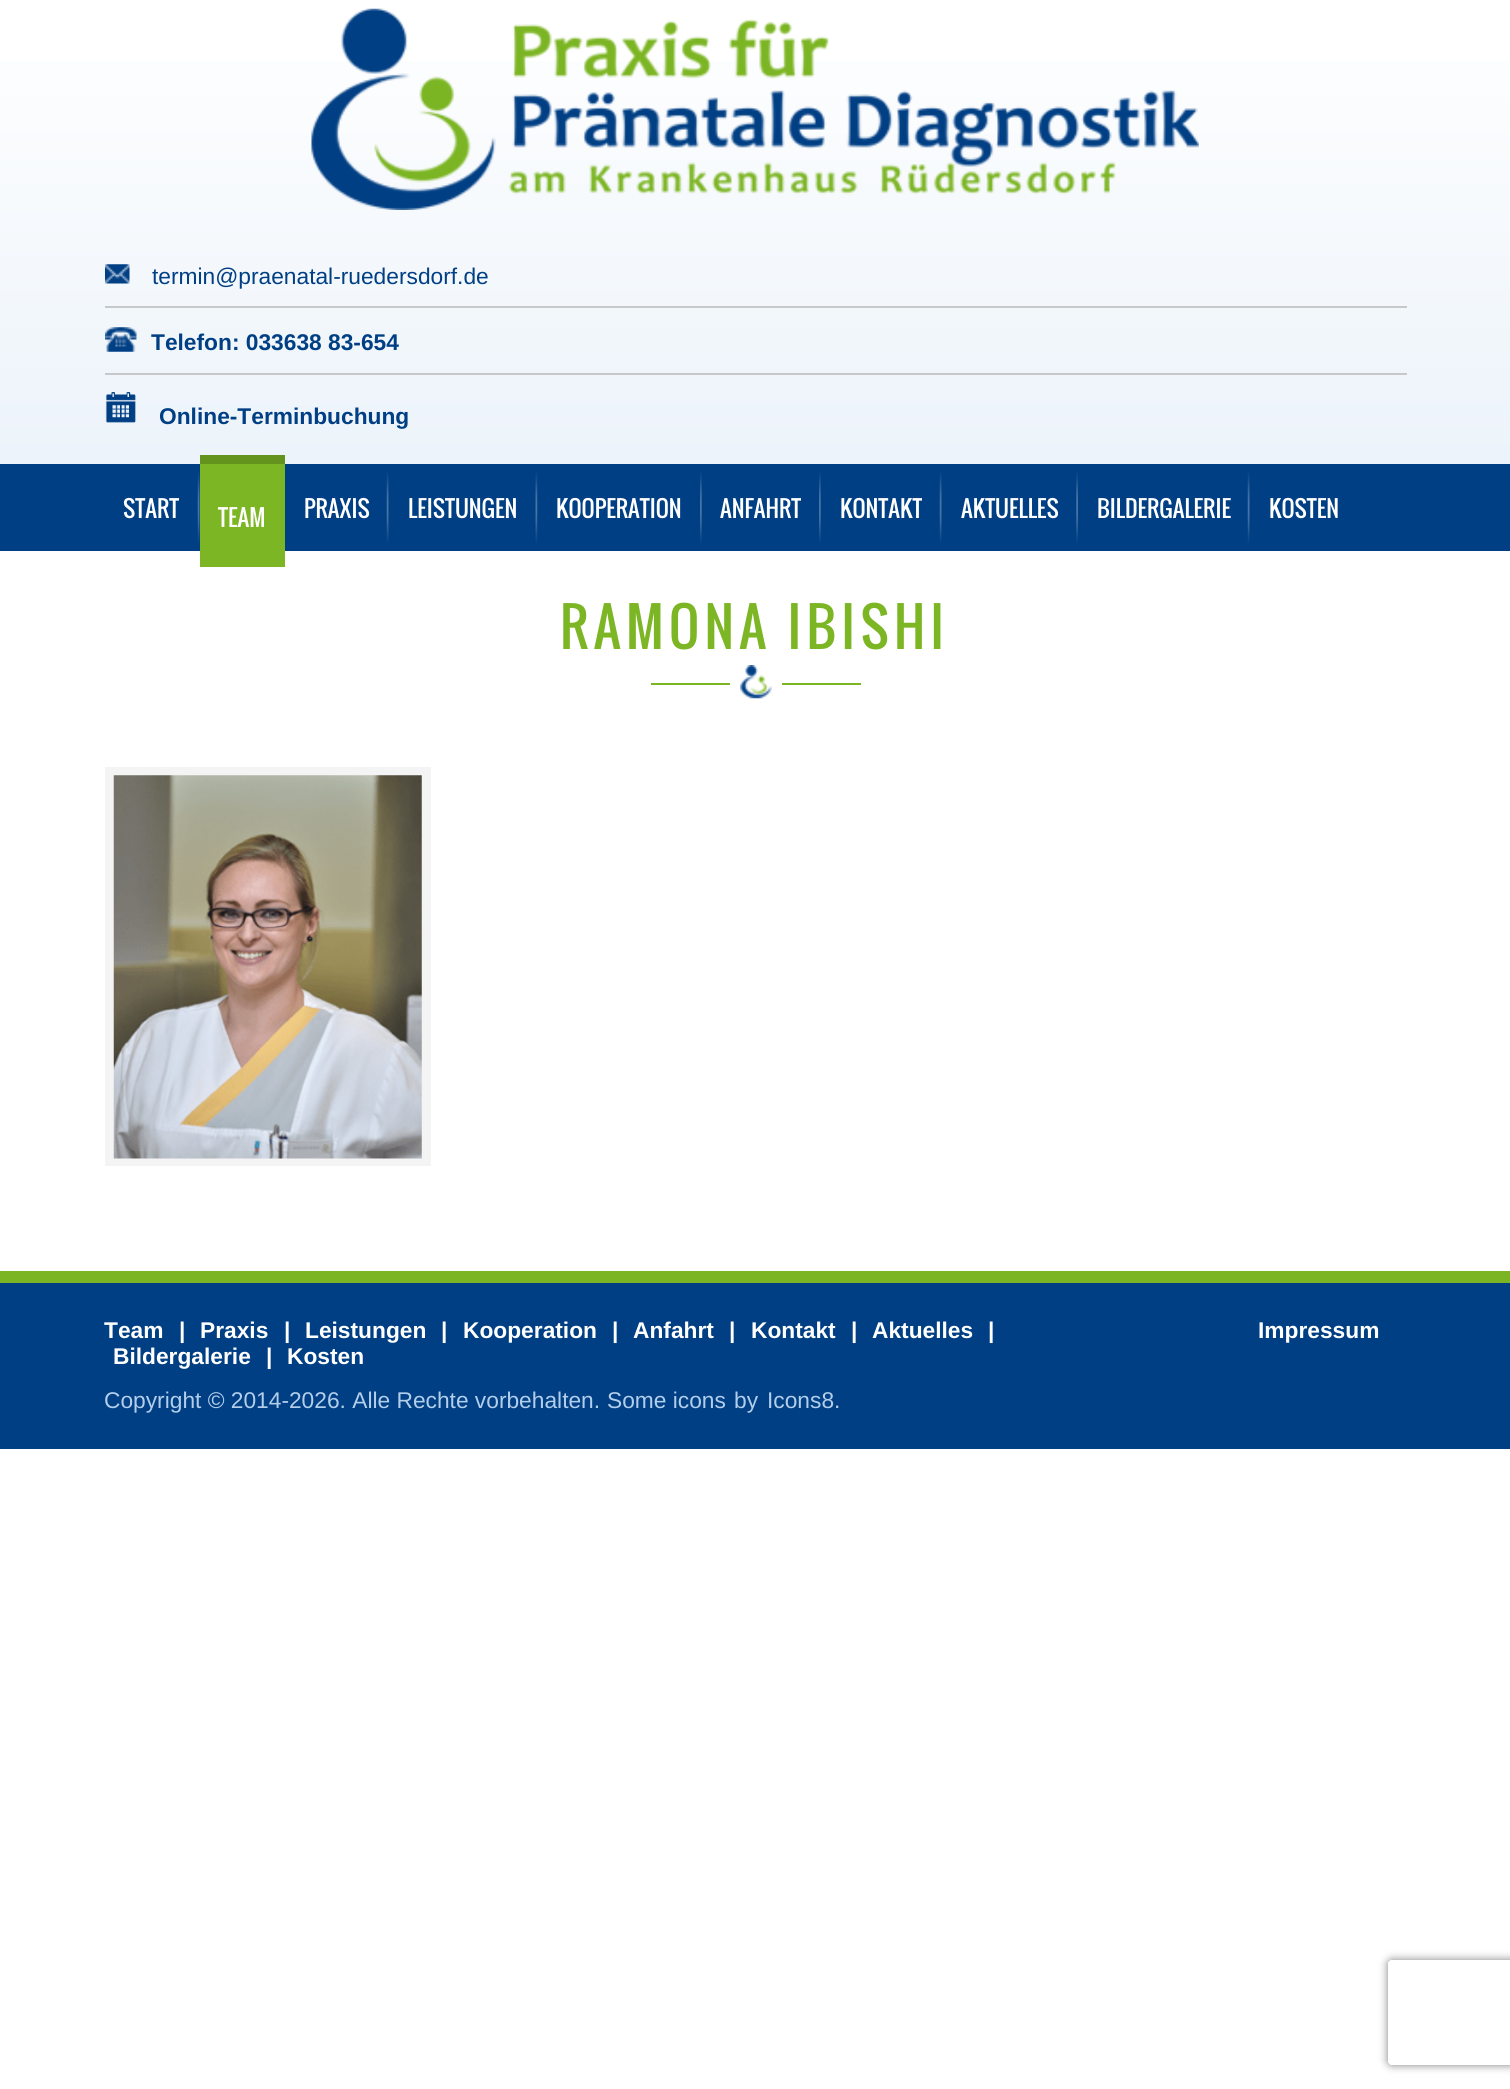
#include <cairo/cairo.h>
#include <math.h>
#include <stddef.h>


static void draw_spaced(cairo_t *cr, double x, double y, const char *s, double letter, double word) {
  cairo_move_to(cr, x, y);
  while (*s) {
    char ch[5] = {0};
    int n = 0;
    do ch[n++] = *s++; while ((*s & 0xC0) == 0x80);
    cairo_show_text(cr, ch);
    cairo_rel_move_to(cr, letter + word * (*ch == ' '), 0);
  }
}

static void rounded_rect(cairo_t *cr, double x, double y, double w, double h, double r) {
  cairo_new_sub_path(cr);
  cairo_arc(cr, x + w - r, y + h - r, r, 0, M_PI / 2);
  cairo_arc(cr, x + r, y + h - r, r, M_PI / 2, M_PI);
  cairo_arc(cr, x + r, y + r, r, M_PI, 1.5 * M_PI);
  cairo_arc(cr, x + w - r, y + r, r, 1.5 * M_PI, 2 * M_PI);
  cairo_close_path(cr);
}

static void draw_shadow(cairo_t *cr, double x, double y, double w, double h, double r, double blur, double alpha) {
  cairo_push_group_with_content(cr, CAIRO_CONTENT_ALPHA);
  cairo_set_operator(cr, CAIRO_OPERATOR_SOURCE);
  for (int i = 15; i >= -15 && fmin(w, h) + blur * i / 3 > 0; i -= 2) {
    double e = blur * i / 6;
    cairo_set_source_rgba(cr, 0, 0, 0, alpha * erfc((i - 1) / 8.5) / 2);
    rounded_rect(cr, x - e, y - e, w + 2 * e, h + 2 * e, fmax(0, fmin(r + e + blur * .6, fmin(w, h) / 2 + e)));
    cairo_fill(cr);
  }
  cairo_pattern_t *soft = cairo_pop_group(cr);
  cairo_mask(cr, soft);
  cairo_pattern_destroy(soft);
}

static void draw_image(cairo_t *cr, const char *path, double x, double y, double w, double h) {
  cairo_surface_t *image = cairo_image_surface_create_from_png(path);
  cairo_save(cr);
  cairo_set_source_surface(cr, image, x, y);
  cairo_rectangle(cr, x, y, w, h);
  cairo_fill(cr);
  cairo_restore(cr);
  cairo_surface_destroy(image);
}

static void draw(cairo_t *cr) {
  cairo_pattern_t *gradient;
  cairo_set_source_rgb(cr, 1, 1, 1);
  cairo_paint(cr);
  gradient = cairo_pattern_create_linear(755, 0, 755, 464);
  cairo_pattern_add_color_stop_rgba(gradient, 0, 1, 1, 1, 1);
  cairo_pattern_add_color_stop_rgba(gradient, 1, 236 / 255.0, 243 / 255.0, 250 / 255.0, 1);
  cairo_set_source(cr, gradient);
  cairo_pattern_destroy(gradient);
  cairo_rectangle(cr, 0, 61, 1510, 403);
  cairo_fill(cr);
  draw_image(cr, "images/1.png", 311, 8, 888, 202);
  cairo_set_source_rgb(cr, 198 / 255.0, 200 / 255.0, 202 / 255.0);
  cairo_rectangle(cr, 105, 306, 1302, 2);
  cairo_fill(cr);
  draw_image(cr, "images/2.png", 105, 264, 25, 20);
  cairo_rectangle(cr, 105, 373, 1302, 2);
  cairo_fill(cr);
  draw_image(cr, "images/3.png", 105, 327, 32, 25);
  draw_image(cr, "images/4.png", 105, 392, 31, 31);
  cairo_set_source_rgb(cr, 0, 63 / 255.0, 132 / 255.0);
  cairo_rectangle(cr, 0, 464, 1510, 87);
  cairo_fill(cr);
  draw_image(cr, "images/5.png", 197, 472, 3, 71);
  cairo_set_source_rgb(cr, 124 / 255.0, 182 / 255.0, 36 / 255.0);
  cairo_rectangle(cr, 200, 464, 85, 103);
  cairo_fill(cr);
  cairo_set_source_rgb(cr, 99 / 255.0, 146 / 255.0, 29 / 255.0);
  cairo_rectangle(cr, 200, 455, 85, 9);
  cairo_fill(cr);
  draw_image(cr, "images/5.png", 386, 472, 3, 71);
  draw_image(cr, "images/6.png", 535, 472, 3, 71);
  draw_image(cr, "images/7.png", 700, 472, 2, 71);
  draw_image(cr, "images/7.png", 819, 472, 2, 71);
  draw_image(cr, "images/5.png", 939, 472, 3, 71);
  draw_image(cr, "images/8.png", 1076, 472, 2, 71);
  draw_image(cr, "images/5.png", 1247, 472, 3, 71);
  cairo_set_source_rgb(cr, 124 / 255.0, 182 / 255.0, 36 / 255.0);
  cairo_rectangle(cr, 651, 683, 210, 2);
  cairo_fill(cr);
  cairo_set_source_rgb(cr, 1, 1, 1);
  cairo_rectangle(cr, 730, 683, 52, 2);
  cairo_fill(cr);
  draw_image(cr, "images/9.png", 740, 665, 32, 34);
  cairo_set_source_rgb(cr, 245 / 255.0, 244 / 255.0, 244 / 255.0);
  cairo_rectangle(cr, 105, 767, 326, 399);
  cairo_fill(cr);
  draw_image(cr, "images/10.png", 113, 775, 309, 384);
  cairo_set_source_rgb(cr, 0, 63 / 255.0, 132 / 255.0);
  cairo_rectangle(cr, 0, 1283, 1510, 166);
  cairo_fill(cr);
  cairo_set_source_rgb(cr, 124 / 255.0, 181 / 255.0, 36 / 255.0);
  cairo_rectangle(cr, 0, 1271, 1510, 12);
  cairo_fill(cr);
  cairo_save(cr);
  cairo_set_fill_rule(cr, CAIRO_FILL_RULE_EVEN_ODD);
  cairo_new_path(cr);
  cairo_move_to(cr, 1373, 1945);
  cairo_line_to(cr, 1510, 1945);
  cairo_line_to(cr, 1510, 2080);
  cairo_line_to(cr, 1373, 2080);
  cairo_close_path(cr);
  cairo_move_to(cr, 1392, 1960);
  cairo_line_to(cr, 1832, 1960);
  cairo_curve_to(cr, 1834, 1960, 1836, 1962, 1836, 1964);
  cairo_line_to(cr, 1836, 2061);
  cairo_curve_to(cr, 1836, 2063, 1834, 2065, 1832, 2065);
  cairo_line_to(cr, 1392, 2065);
  cairo_curve_to(cr, 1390, 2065, 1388, 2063, 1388, 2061);
  cairo_line_to(cr, 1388, 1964);
  cairo_curve_to(cr, 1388, 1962, 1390, 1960, 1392, 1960);
  cairo_close_path(cr);
  cairo_clip(cr);
  cairo_set_source_rgb(cr, 128 / 255.0, 128 / 255.0, 128 / 255.0);
  draw_shadow(cr, 1388, 1960, 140, 105, 4, 4.5, 1);
  cairo_restore(cr);
  cairo_select_font_face(cr, "Liberation Sans", CAIRO_FONT_SLANT_NORMAL, CAIRO_FONT_WEIGHT_NORMAL);
  cairo_set_font_size(cr, 22.75);
  cairo_set_source_rgb(cr, 0, 63 / 255.0, 132 / 255.0);
  cairo_move_to(cr, 152, 284);
  cairo_show_text(cr, "termin@praenatal-ruedersdorf.de");
  cairo_select_font_face(cr, "Liberation Sans", CAIRO_FONT_SLANT_NORMAL, CAIRO_FONT_WEIGHT_BOLD);
  cairo_move_to(cr, 151, 350);
  cairo_show_text(cr, "Telefon: 033638 83-654");
  cairo_move_to(cr, 159, 424);
  cairo_show_text(cr, "Online-Terminbuchung");
  cairo_select_font_face(cr, "Oswald", CAIRO_FONT_SLANT_NORMAL, CAIRO_FONT_WEIGHT_NORMAL);
  cairo_set_source_rgb(cr, 1, 1, 1);
  cairo_move_to(cr, 123, 518);
  cairo_show_text(cr, "START");
  cairo_move_to(cr, 218, 527);
  cairo_show_text(cr, "TEAM");
  cairo_move_to(cr, 304, 518);
  cairo_show_text(cr, "PRAXIS");
  cairo_move_to(cr, 408, 518);
  cairo_show_text(cr, "LEISTUNGEN");
  cairo_move_to(cr, 556, 518);
  cairo_show_text(cr, "KOOPERATION");
  cairo_move_to(cr, 720, 518);
  cairo_show_text(cr, "ANFAHRT");
  cairo_move_to(cr, 840, 518);
  cairo_show_text(cr, "KONTAKT");
  cairo_move_to(cr, 961, 518);
  cairo_show_text(cr, "AKTUELLES");
  cairo_move_to(cr, 1097, 518);
  cairo_show_text(cr, "BILDERGALERIE");
  cairo_move_to(cr, 1269, 518);
  cairo_show_text(cr, "KOSTEN");
  cairo_set_font_size(cr, 52.5);
  cairo_set_source_rgb(cr, 124 / 255.0, 182 / 255.0, 36 / 255.0);
  draw_spaced(cr, 560, 649, "RAMONA IBISHI", 5.25, 0);
  cairo_select_font_face(cr, "Liberation Sans", CAIRO_FONT_SLANT_NORMAL, CAIRO_FONT_WEIGHT_BOLD);
  cairo_set_font_size(cr, 22.75);
  cairo_set_source_rgb(cr, 1, 1, 1);
  cairo_move_to(cr, 104, 1338);
  cairo_show_text(cr, "Team");
  cairo_move_to(cr, 179, 1338);
  cairo_show_text(cr, "|");
  cairo_move_to(cr, 200, 1338);
  cairo_show_text(cr, "Praxis");
  cairo_move_to(cr, 284, 1338);
  cairo_show_text(cr, "|");
  cairo_move_to(cr, 305, 1338);
  cairo_show_text(cr, "Leistungen");
  cairo_move_to(cr, 441, 1338);
  cairo_show_text(cr, "|");
  cairo_move_to(cr, 463, 1338);
  cairo_show_text(cr, "Kooperation");
  cairo_move_to(cr, 612, 1338);
  cairo_show_text(cr, "|");
  cairo_move_to(cr, 633, 1338);
  cairo_show_text(cr, "Anfahrt");
  cairo_move_to(cr, 729, 1338);
  cairo_show_text(cr, "|");
  cairo_move_to(cr, 751, 1338);
  cairo_show_text(cr, "Kontakt");
  cairo_move_to(cr, 851, 1338);
  cairo_show_text(cr, "|");
  cairo_move_to(cr, 872, 1338);
  cairo_show_text(cr, "Aktuelles");
  cairo_move_to(cr, 988, 1338);
  cairo_show_text(cr, "|");
  cairo_move_to(cr, 113, 1364);
  cairo_show_text(cr, "Bildergalerie");
  cairo_move_to(cr, 266, 1364);
  cairo_show_text(cr, "|");
  cairo_move_to(cr, 287, 1364);
  cairo_show_text(cr, "Kosten");
  cairo_select_font_face(cr, "Liberation Sans", CAIRO_FONT_SLANT_NORMAL, CAIRO_FONT_WEIGHT_NORMAL);
  cairo_set_source_rgb(cr, 179 / 255.0, 206 / 255.0, 235 / 255.0);
  cairo_move_to(cr, 104, 1408);
  cairo_show_text(cr, "Copyright © 2014-2026. Alle Rechte vorbehalten.");
  cairo_move_to(cr, 607, 1408);
  cairo_show_text(cr, "Some icons");
  cairo_move_to(cr, 734, 1408);
  cairo_show_text(cr, "by");
  cairo_move_to(cr, 767, 1408);
  cairo_show_text(cr, "Icons8.");
  cairo_select_font_face(cr, "Liberation Sans", CAIRO_FONT_SLANT_NORMAL, CAIRO_FONT_WEIGHT_BOLD);
  cairo_set_source_rgb(cr, 1, 1, 1);
  cairo_move_to(cr, 1258, 1338);
  cairo_show_text(cr, "Impressum");
}

int main(void) {
  cairo_surface_t *surface = cairo_image_surface_create(CAIRO_FORMAT_RGB24, 1510, 2089);
  cairo_t *cr = cairo_create(surface);
  cairo_font_options_t *options = cairo_font_options_create();
  cairo_font_options_set_hint_metrics(options, CAIRO_HINT_METRICS_OFF);
  cairo_font_options_set_hint_style(options, CAIRO_HINT_STYLE_NONE);
  cairo_set_font_options(cr, options);
  cairo_set_miter_limit(cr, 4);
  draw(cr);
  cairo_surface_write_to_png(surface, "out.png");
  cairo_font_options_destroy(options);
  cairo_destroy(cr);
  cairo_surface_destroy(surface);
  return 0;
}
